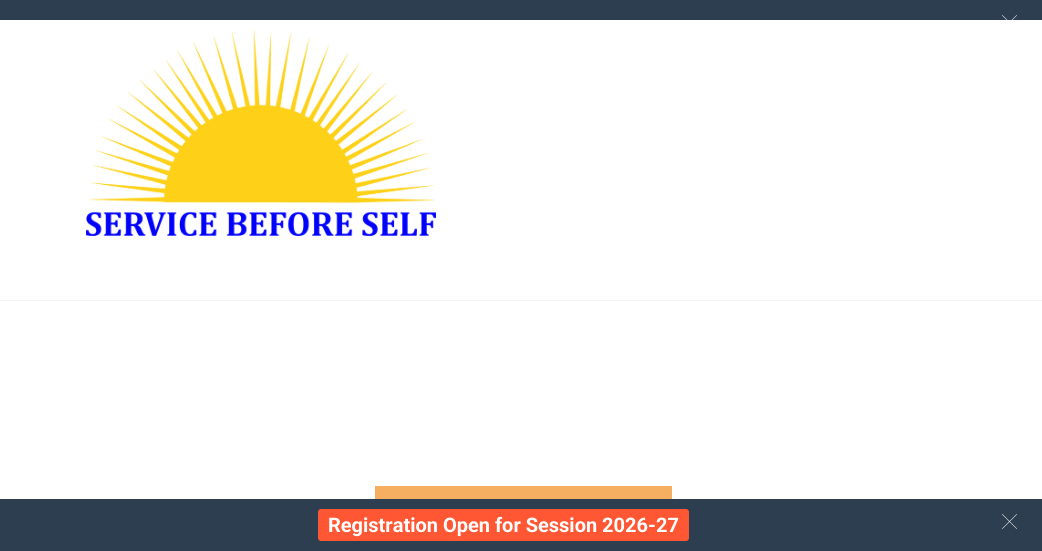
#include <cairo/cairo.h>
#include <math.h>
#include <stddef.h>


static void rounded_rect(cairo_t *cr, double x, double y, double w, double h, double r) {
  cairo_new_sub_path(cr);
  cairo_arc(cr, x + w - r, y + h - r, r, 0, M_PI / 2);
  cairo_arc(cr, x + r, y + h - r, r, M_PI / 2, M_PI);
  cairo_arc(cr, x + r, y + r, r, M_PI, 1.5 * M_PI);
  cairo_arc(cr, x + w - r, y + r, r, 1.5 * M_PI, 2 * M_PI);
  cairo_close_path(cr);
}

static void draw_image(cairo_t *cr, const char *path, double x, double y, double w, double h) {
  cairo_surface_t *image = cairo_image_surface_create_from_png(path);
  cairo_save(cr);
  cairo_set_source_surface(cr, image, x, y);
  cairo_rectangle(cr, x, y, w, h);
  cairo_fill(cr);
  cairo_restore(cr);
  cairo_surface_destroy(image);
}

static void draw(cairo_t *cr) {
  cairo_set_source_rgb(cr, 1, 1, 1);
  cairo_paint(cr);
  cairo_set_source_rgb(cr, 45 / 255.0, 62 / 255.0, 80 / 255.0);
  cairo_rectangle(cr, 0, 0, 1042, 20);
  cairo_fill(cr);
  draw_image(cr, "images/1.png", 1002, 15, 15, 5);
  cairo_set_source_rgb(cr, 245 / 255.0, 245 / 255.0, 245 / 255.0);
  cairo_rectangle(cr, 0, 300, 1042, 1);
  cairo_fill(cr);
  draw_image(cr, "images/2.png", 86, 30, 350, 206);
  cairo_set_source_rgb(cr, 246 / 255.0, 174 / 255.0, 97 / 255.0);
  cairo_rectangle(cr, 375, 486, 297, 13);
  cairo_fill(cr);
  cairo_set_source_rgb(cr, 45 / 255.0, 62 / 255.0, 80 / 255.0);
  cairo_rectangle(cr, 0, 499, 1042, 52);
  cairo_fill(cr);
  cairo_set_source_rgb(cr, 1, 87 / 255.0, 51 / 255.0);
  rounded_rect(cr, 318, 509, 371, 32, 3);
  cairo_fill(cr);
  draw_image(cr, "images/3.png", 1002, 514, 15, 15);
  cairo_select_font_face(cr, "Roboto", CAIRO_FONT_SLANT_NORMAL, CAIRO_FONT_WEIGHT_BOLD);
  cairo_set_font_size(cr, 20);
  cairo_set_source_rgb(cr, 1, 1, 1);
  cairo_move_to(cr, 328, 532);
  cairo_show_text(cr, "Registration Open for Session 2026-27");
}

int main(void) {
  cairo_surface_t *surface = cairo_image_surface_create(CAIRO_FORMAT_RGB24, 1042, 551);
  cairo_t *cr = cairo_create(surface);
  cairo_font_options_t *options = cairo_font_options_create();
  cairo_font_options_set_hint_metrics(options, CAIRO_HINT_METRICS_OFF);
  cairo_font_options_set_hint_style(options, CAIRO_HINT_STYLE_NONE);
  cairo_set_font_options(cr, options);
  cairo_set_miter_limit(cr, 4);
  draw(cr);
  cairo_surface_write_to_png(surface, "out.png");
  cairo_font_options_destroy(options);
  cairo_destroy(cr);
  cairo_surface_destroy(surface);
  return 0;
}
